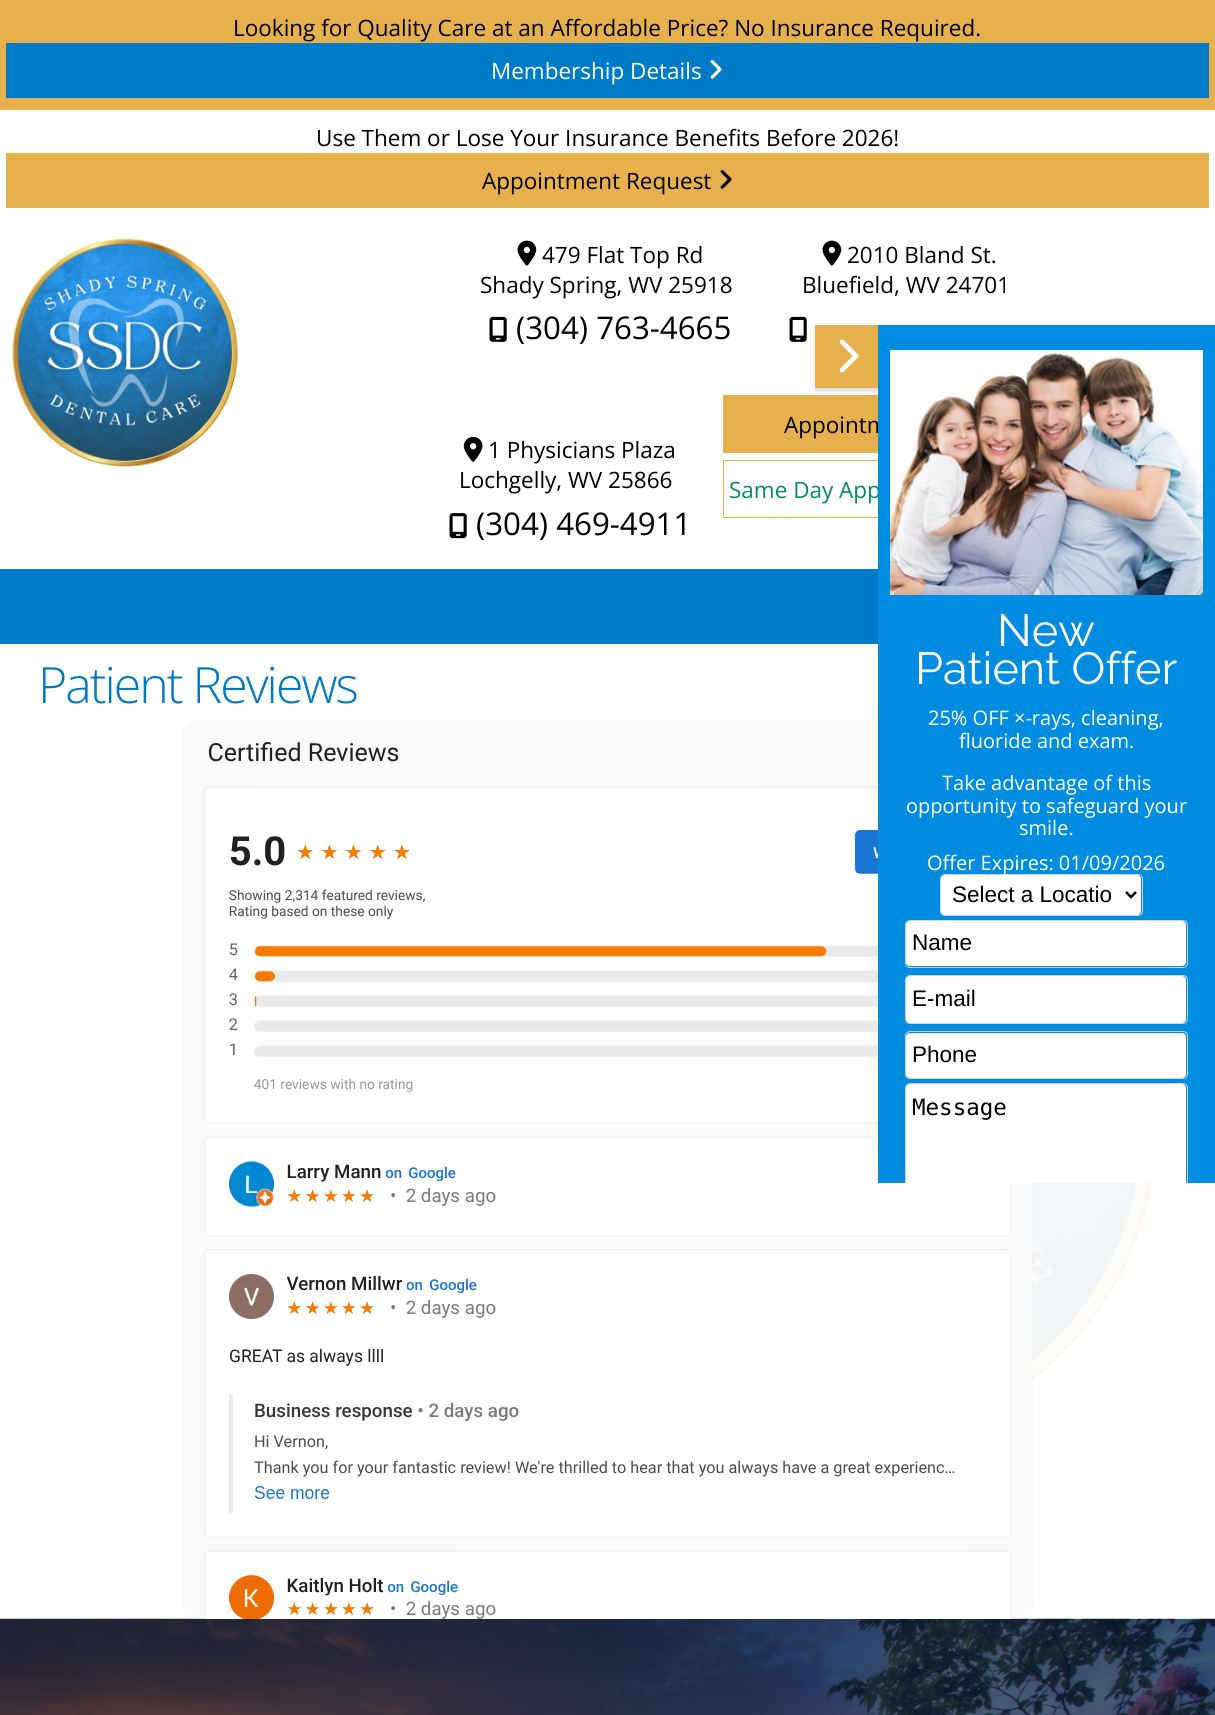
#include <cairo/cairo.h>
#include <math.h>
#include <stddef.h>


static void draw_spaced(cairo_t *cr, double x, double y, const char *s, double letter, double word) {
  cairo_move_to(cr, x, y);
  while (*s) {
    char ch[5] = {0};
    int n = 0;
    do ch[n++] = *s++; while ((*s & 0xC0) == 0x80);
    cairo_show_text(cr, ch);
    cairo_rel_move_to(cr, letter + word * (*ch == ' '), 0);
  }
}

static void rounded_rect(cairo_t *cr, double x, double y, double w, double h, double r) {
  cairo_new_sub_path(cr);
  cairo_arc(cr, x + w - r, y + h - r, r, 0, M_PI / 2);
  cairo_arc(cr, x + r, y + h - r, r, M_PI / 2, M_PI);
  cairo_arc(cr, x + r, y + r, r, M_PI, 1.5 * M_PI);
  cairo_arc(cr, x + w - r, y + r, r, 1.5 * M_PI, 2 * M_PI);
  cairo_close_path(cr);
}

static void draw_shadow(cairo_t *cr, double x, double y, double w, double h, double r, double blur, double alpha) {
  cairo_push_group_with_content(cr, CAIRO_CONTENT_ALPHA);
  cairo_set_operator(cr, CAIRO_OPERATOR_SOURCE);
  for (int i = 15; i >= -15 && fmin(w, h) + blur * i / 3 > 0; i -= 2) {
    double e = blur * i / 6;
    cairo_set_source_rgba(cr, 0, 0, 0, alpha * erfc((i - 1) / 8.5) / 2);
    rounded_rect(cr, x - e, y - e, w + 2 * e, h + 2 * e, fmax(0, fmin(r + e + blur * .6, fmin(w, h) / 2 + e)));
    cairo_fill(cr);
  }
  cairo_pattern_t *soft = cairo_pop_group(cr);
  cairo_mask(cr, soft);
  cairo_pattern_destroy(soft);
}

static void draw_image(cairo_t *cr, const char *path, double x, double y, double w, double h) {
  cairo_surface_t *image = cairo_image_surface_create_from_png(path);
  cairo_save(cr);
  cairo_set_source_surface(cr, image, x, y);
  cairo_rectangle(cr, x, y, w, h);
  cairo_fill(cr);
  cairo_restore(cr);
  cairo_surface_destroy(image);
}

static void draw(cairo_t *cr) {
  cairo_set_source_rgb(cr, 1, 1, 1);
  cairo_paint(cr);
  cairo_set_source_rgb(cr, 230 / 255.0, 176 / 255.0, 76 / 255.0);
  cairo_rectangle(cr, 0, 0, 1215, 110);
  cairo_fill(cr);
  cairo_set_source_rgb(cr, 0, 123 / 255.0, 199 / 255.0);
  cairo_rectangle(cr, 6, 43, 1203, 55);
  cairo_fill(cr);
  draw_image(cr, "images/1.png", 710, 60, 12, 19);
  cairo_set_source_rgb(cr, 230 / 255.0, 176 / 255.0, 76 / 255.0);
  cairo_rectangle(cr, 6, 153, 1203, 55);
  cairo_fill(cr);
  draw_image(cr, "images/2.png", 720, 170, 12, 19);
  draw_image(cr, "images/3.png", 12, 238, 226, 229);
  draw_image(cr, "images/4.png", 517, 240, 20, 26);
  draw_image(cr, "images/5.png", 489, 316, 18, 26);
  draw_image(cr, "images/4.png", 822, 240, 20, 26);
  draw_image(cr, "images/5.png", 789, 316, 18, 26);
  draw_image(cr, "images/6.png", 463, 436, 20, 26);
  draw_image(cr, "images/7.png", 449, 513, 18, 26);
  cairo_rectangle(cr, 723, 395, 155, 58);
  cairo_fill(cr);
  cairo_rectangle(cr, 723.5, 460.5, 374, 57);
  cairo_set_line_width(cr, 1);
  cairo_stroke(cr);
  cairo_set_source_rgb(cr, 0, 123 / 255.0, 199 / 255.0);
  cairo_rectangle(cr, 0, 569, 878, 75);
  cairo_fill(cr);
  draw_image(cr, "images/8.png", 1032, 1183, 120, 197);
  draw_image(cr, "images/12.png", 0, 1618, 1215, 97);
  draw_image(cr, "images/9.png", 182, 719, 851, 900);
  cairo_save(cr);
  cairo_rectangle(cr, 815, 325, 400, 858);
  cairo_clip(cr);
  cairo_set_source_rgb(cr, 0, 0, 0);
  draw_shadow(cr, 813, 323, 67, 67, 0, 4, 0.2);
  cairo_restore(cr);
  cairo_set_source_rgb(cr, 230 / 255.0, 176 / 255.0, 76 / 255.0);
  cairo_rectangle(cr, 815, 325, 63, 63);
  cairo_fill(cr);
  draw_image(cr, "images/10.png", 839, 339, 20, 34);
  cairo_select_font_face(cr, "Open Sans", CAIRO_FONT_SLANT_NORMAL, CAIRO_FONT_WEIGHT_NORMAL);
  cairo_set_font_size(cr, 22.5);
  cairo_set_source_rgb(cr, 0, 0, 0);
  cairo_move_to(cr, 233, 36);
  cairo_show_text(cr, "Looking for Quality Care at an Affordable Price? No Insurance Required.");
  cairo_set_source_rgb(cr, 1, 1, 1);
  cairo_move_to(cr, 491, 79);
  cairo_show_text(cr, "Membership Details");
  cairo_set_source_rgb(cr, 0, 0, 0);
  cairo_move_to(cr, 316, 146);
  cairo_show_text(cr, "Use Them or Lose Your Insurance Benefits Before 2026!");
  cairo_move_to(cr, 482, 189);
  cairo_show_text(cr, "Appointment Request");
  cairo_move_to(cr, 542, 263);
  cairo_show_text(cr, "479 Flat Top Rd");
  cairo_move_to(cr, 480, 293);
  cairo_show_text(cr, "Shady Spring, WV 25918");
  cairo_set_font_size(cr, 31.25);
  cairo_move_to(cr, 516, 339);
  cairo_show_text(cr, "(304) 763-4665");
  cairo_set_font_size(cr, 22.5);
  cairo_move_to(cr, 847, 263);
  cairo_show_text(cr, "2010 Bland St.");
  cairo_move_to(cr, 802, 293);
  cairo_show_text(cr, "Bluefield, WV 24701");
  cairo_move_to(cr, 488, 458);
  cairo_show_text(cr, "1 Physicians Plaza");
  cairo_move_to(cr, 459, 488);
  cairo_show_text(cr, "Lochgelly, WV 25866");
  cairo_set_font_size(cr, 31.25);
  cairo_move_to(cr, 476, 535);
  cairo_show_text(cr, "(304) 469-4911");
  cairo_set_font_size(cr, 22.5);
  cairo_move_to(cr, 784, 433);
  cairo_show_text(cr, "Appointm");
  cairo_set_source_rgb(cr, 2 / 255.0, 139 / 255.0, 95 / 255.0);
  cairo_move_to(cr, 729, 498);
  cairo_show_text(cr, "Same Day App");
  cairo_select_font_face(cr, "Open Sans Light", CAIRO_FONT_SLANT_NORMAL, CAIRO_FONT_WEIGHT_NORMAL);
  cairo_set_font_size(cr, 50);
  cairo_set_source_rgb(cr, 0, 121 / 255.0, 194 / 255.0);
  draw_spaced(cr, 38, 703, "Patient Reviews", -2, 0);
  cairo_set_source_rgb(cr, 0, 140 / 255.0, 225 / 255.0);
  cairo_rectangle(cr, 878, 325, 337, 858);
  cairo_fill(cr);
  draw_image(cr, "images/11.png", 890, 350, 313, 245);
  cairo_select_font_face(cr, "Raleway", CAIRO_FONT_SLANT_NORMAL, CAIRO_FONT_WEIGHT_NORMAL);
  cairo_set_font_size(cr, 45);
  cairo_set_source_rgb(cr, 1, 1, 1);
  cairo_move_to(cr, 997, 646);
  cairo_show_text(cr, "New");
  cairo_move_to(cr, 915, 684);
  cairo_show_text(cr, "Patient Offer");
  cairo_select_font_face(cr, "Open Sans", CAIRO_FONT_SLANT_NORMAL, CAIRO_FONT_WEIGHT_NORMAL);
  cairo_set_font_size(cr, 20);
  cairo_move_to(cr, 928, 725);
  cairo_show_text(cr, "25% OFF ×-rays, cleaning,");
  cairo_move_to(cr, 959, 748);
  cairo_show_text(cr, "fluoride and exam.");
  cairo_move_to(cr, 942, 790);
  cairo_show_text(cr, "Take advantage of this");
  cairo_move_to(cr, 906, 813);
  cairo_show_text(cr, "opportunity to safeguard your");
  cairo_move_to(cr, 1019, 835);
  cairo_show_text(cr, "smile.");
  cairo_move_to(cr, 927, 870);
  cairo_show_text(cr, "Offer Expires: 01/09/2026");
  rounded_rect(cr, 941, 875, 200, 40, 4);
  cairo_fill(cr);
  rounded_rect(cr, 940.5, 874.5, 202, 41, 4.5);
  cairo_set_source_rgb(cr, 206 / 255.0, 212 / 255.0, 218 / 255.0);
  cairo_stroke(cr);
  cairo_new_path(cr);
  cairo_move_to(cr, 1126, 892);
  cairo_line_to(cr, 1131, 897);
  cairo_line_to(cr, 1136, 892);
  cairo_set_source_rgb(cr, 0, 0, 0);
  cairo_set_line_width(cr, 2.5);
  cairo_stroke(cr);
  cairo_select_font_face(cr, "Liberation Sans", CAIRO_FONT_SLANT_NORMAL, CAIRO_FONT_WEIGHT_NORMAL);
  cairo_set_font_size(cr, 22.5);
  cairo_move_to(cr, 952, 902);
  cairo_show_text(cr, "Select a Locatio");
  cairo_set_source_rgb(cr, 1, 1, 1);
  rounded_rect(cr, 906, 921, 280, 45, 4);
  cairo_fill(cr);
  rounded_rect(cr, 905.5, 920.5, 282, 47, 4.5);
  cairo_set_source_rgb(cr, 206 / 255.0, 212 / 255.0, 218 / 255.0);
  cairo_set_line_width(cr, 1);
  cairo_stroke(cr);
  cairo_set_source_rgb(cr, 0, 0, 0);
  cairo_move_to(cr, 912, 950);
  cairo_show_text(cr, "Name");
  cairo_set_source_rgb(cr, 1, 1, 1);
  rounded_rect(cr, 906, 976, 280, 47, 4);
  cairo_fill(cr);
  rounded_rect(cr, 905.5, 975.5, 282, 48, 4.5);
  cairo_set_source_rgb(cr, 206 / 255.0, 212 / 255.0, 218 / 255.0);
  cairo_stroke(cr);
  cairo_set_source_rgb(cr, 0, 0, 0);
  cairo_move_to(cr, 912, 1006);
  cairo_show_text(cr, "E-mail");
  cairo_set_source_rgb(cr, 1, 1, 1);
  rounded_rect(cr, 906, 1033, 280, 45, 4);
  cairo_fill(cr);
  rounded_rect(cr, 905.5, 1031.5, 282, 47, 4.5);
  cairo_set_source_rgb(cr, 206 / 255.0, 212 / 255.0, 218 / 255.0);
  cairo_stroke(cr);
  cairo_set_source_rgb(cr, 0, 0, 0);
  cairo_move_to(cr, 912, 1062);
  cairo_show_text(cr, "Phone");
  cairo_set_source_rgb(cr, 1, 1, 1);
  cairo_new_path(cr);
  cairo_move_to(cr, 910, 1084);
  cairo_line_to(cr, 1182, 1084);
  cairo_curve_to(cr, 1184, 1084, 1186, 1086, 1186, 1088);
  cairo_line_to(cr, 1186, 1183);
  cairo_line_to(cr, 906, 1183);
  cairo_line_to(cr, 906, 1088);
  cairo_curve_to(cr, 906, 1086, 908, 1084, 910, 1084);
  cairo_close_path(cr);
  cairo_fill(cr);
  cairo_save(cr);
  cairo_rectangle(cr, 878, 325, 337, 858);
  cairo_clip(cr);
  rounded_rect(cr, 905.5, 1083.5, 282, 124, 4.5);
  cairo_set_source_rgb(cr, 206 / 255.0, 212 / 255.0, 218 / 255.0);
  cairo_stroke(cr);
  cairo_restore(cr);
  cairo_select_font_face(cr, "DejaVu Sans Mono", CAIRO_FONT_SLANT_NORMAL, CAIRO_FONT_WEIGHT_NORMAL);
  cairo_set_source_rgb(cr, 0, 0, 0);
  cairo_move_to(cr, 912, 1115);
  cairo_show_text(cr, "Message");
}

int main(void) {
  cairo_surface_t *surface = cairo_image_surface_create(CAIRO_FORMAT_RGB24, 1215, 1715);
  cairo_t *cr = cairo_create(surface);
  cairo_font_options_t *options = cairo_font_options_create();
  cairo_font_options_set_hint_metrics(options, CAIRO_HINT_METRICS_OFF);
  cairo_font_options_set_hint_style(options, CAIRO_HINT_STYLE_NONE);
  cairo_set_font_options(cr, options);
  cairo_set_miter_limit(cr, 4);
  draw(cr);
  cairo_surface_write_to_png(surface, "out.png");
  cairo_font_options_destroy(options);
  cairo_destroy(cr);
  cairo_surface_destroy(surface);
  return 0;
}
